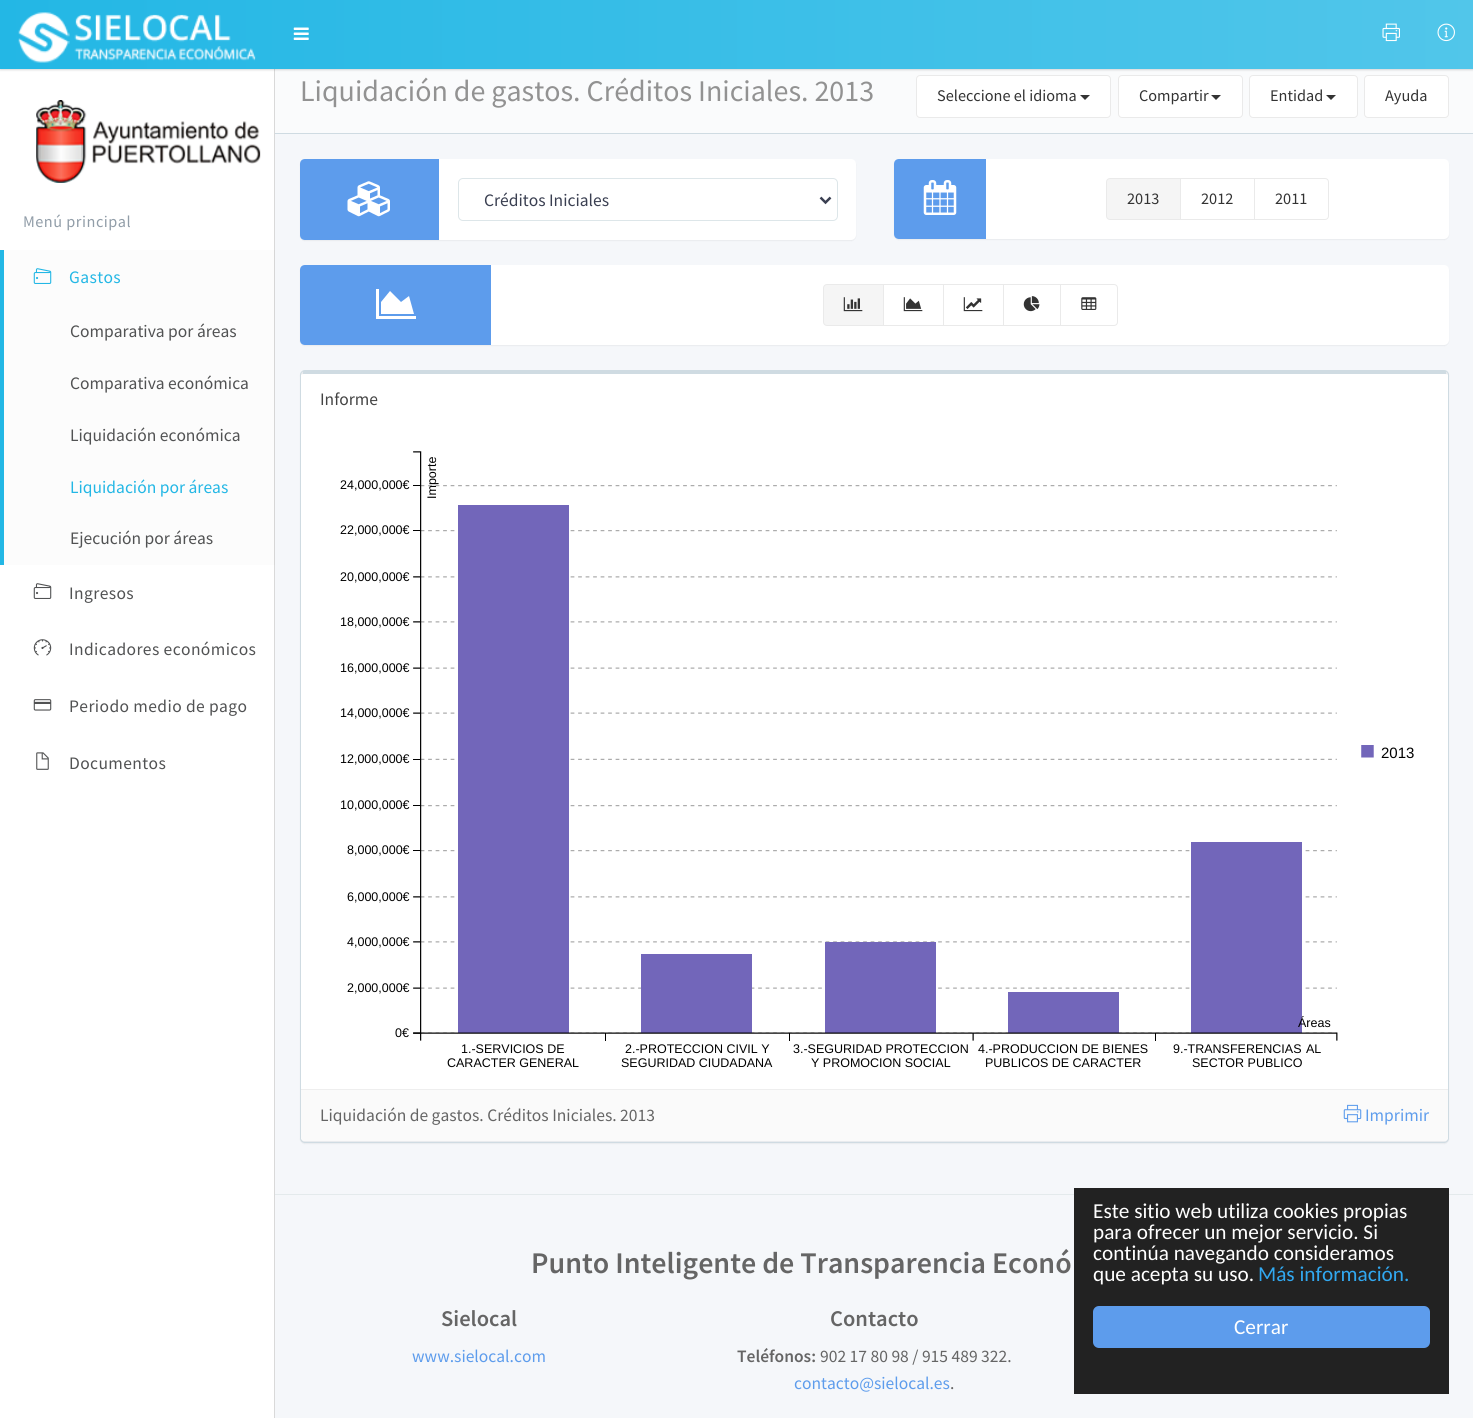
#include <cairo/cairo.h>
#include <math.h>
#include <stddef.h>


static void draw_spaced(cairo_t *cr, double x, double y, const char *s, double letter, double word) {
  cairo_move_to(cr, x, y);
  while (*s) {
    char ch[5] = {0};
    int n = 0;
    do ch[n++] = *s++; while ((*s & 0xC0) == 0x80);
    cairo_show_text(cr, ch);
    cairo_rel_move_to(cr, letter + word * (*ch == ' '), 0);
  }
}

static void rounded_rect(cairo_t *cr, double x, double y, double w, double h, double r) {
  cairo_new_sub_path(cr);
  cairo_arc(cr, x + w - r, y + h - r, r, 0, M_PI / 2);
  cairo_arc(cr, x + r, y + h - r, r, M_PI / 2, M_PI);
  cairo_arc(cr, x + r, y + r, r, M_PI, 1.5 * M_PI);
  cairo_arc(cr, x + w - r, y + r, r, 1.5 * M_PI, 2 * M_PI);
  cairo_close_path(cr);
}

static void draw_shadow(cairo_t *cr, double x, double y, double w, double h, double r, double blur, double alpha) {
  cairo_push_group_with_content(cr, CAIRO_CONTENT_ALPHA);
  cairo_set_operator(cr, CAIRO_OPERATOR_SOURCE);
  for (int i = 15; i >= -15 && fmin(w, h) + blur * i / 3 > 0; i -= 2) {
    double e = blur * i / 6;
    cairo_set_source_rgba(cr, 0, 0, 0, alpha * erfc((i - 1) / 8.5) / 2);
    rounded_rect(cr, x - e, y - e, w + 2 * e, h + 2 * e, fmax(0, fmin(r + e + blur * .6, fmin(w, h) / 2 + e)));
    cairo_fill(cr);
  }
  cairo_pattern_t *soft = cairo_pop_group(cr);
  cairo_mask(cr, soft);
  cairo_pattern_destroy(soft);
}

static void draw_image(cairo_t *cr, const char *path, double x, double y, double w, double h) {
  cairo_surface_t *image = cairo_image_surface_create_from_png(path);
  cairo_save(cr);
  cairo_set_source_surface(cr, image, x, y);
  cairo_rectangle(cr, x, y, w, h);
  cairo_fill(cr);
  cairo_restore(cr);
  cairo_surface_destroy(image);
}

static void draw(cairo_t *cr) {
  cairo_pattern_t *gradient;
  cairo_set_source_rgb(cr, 245 / 255.0, 247 / 255.0, 250 / 255.0);
  cairo_paint(cr);
  cairo_set_source_rgb(cr, 1, 1, 1);
  cairo_rectangle(cr, 0, 69, 274, 1349);
  cairo_fill(cr);
  cairo_set_source_rgb(cr, 217 / 255.0, 217 / 255.0, 217 / 255.0);
  cairo_rectangle(cr, 274, 69, 1, 1349);
  cairo_fill(cr);
  cairo_set_source_rgb(cr, 250 / 255.0, 251 / 255.0, 252 / 255.0);
  cairo_rectangle(cr, 275, 69, 1198, 64);
  cairo_fill(cr);
  cairo_set_source_rgb(cr, 0, 0, 0);
  draw_shadow(cr, 0, 1, 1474, 69, 0, 1, 0.15);
  gradient = cairo_pattern_create_linear(0, 34, 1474, 34);
  cairo_pattern_add_color_stop_rgba(gradient, 0, 35 / 255.0, 183 / 255.0, 229 / 255.0, 1);
  cairo_pattern_add_color_stop_rgba(gradient, 1, 81 / 255.0, 198 / 255.0, 234 / 255.0, 1);
  cairo_set_source(cr, gradient);
  cairo_pattern_destroy(gradient);
  cairo_rectangle(cr, 0, 0, 1473, 69);
  cairo_fill(cr);
  draw_image(cr, "images/1.png", 293, 27, 16, 13);
  draw_image(cr, "images/2.png", 1382, 23, 18, 19);
  draw_image(cr, "images/3.png", 1437, 23, 18, 19);
  draw_image(cr, "images/4.png", 18, 12, 238, 51);
  draw_image(cr, "images/5.png", 36, 100, 225, 83);
  cairo_set_source_rgb(cr, 252 / 255.0, 252 / 255.0, 252 / 255.0);
  cairo_rectangle(cr, 4, 250, 270, 315);
  cairo_fill(cr);
  cairo_set_source_rgb(cr, 214 / 255.0, 214 / 255.0, 214 / 255.0);
  cairo_rectangle(cr, 274, 250, 1, 315);
  cairo_fill(cr);
  cairo_set_source_rgb(cr, 35 / 255.0, 183 / 255.0, 229 / 255.0);
  cairo_rectangle(cr, 0, 250, 4, 315);
  cairo_fill(cr);
  draw_image(cr, "images/6.png", 33, 268, 19, 16);
  draw_image(cr, "images/7.png", 33, 583, 19, 16);
  draw_image(cr, "images/8.png", 33, 639, 19, 17);
  draw_image(cr, "images/9.png", 33, 699, 19, 12);
  draw_image(cr, "images/10.png", 36, 752, 13, 18);
  cairo_set_source_rgb(cr, 207 / 255.0, 219 / 255.0, 226 / 255.0);
  cairo_rectangle(cr, 275, 133, 1198, 1);
  cairo_fill(cr);
  cairo_set_source_rgb(cr, 1, 1, 1);
  rounded_rect(cr, 916.5, 75.5, 194, 42, 3.5);
  cairo_fill_preserve(cr);
  cairo_set_source_rgb(cr, 234 / 255.0, 234 / 255.0, 234 / 255.0);
  cairo_set_line_width(cr, 1);
  cairo_stroke(cr);
  cairo_set_source_rgb(cr, 51 / 255.0, 51 / 255.0, 51 / 255.0);
  cairo_new_path(cr);
  cairo_move_to(cr, 1080, 95);
  cairo_line_to(cr, 1090, 95);
  cairo_line_to(cr, 1085, 100);
  cairo_close_path(cr);
  cairo_fill(cr);
  cairo_set_source_rgb(cr, 1, 1, 1);
  rounded_rect(cr, 1118.5, 75.5, 124, 42, 3.5);
  cairo_fill_preserve(cr);
  cairo_set_source_rgb(cr, 234 / 255.0, 234 / 255.0, 234 / 255.0);
  cairo_stroke(cr);
  cairo_set_source_rgb(cr, 51 / 255.0, 51 / 255.0, 51 / 255.0);
  cairo_new_path(cr);
  cairo_move_to(cr, 1211, 95);
  cairo_line_to(cr, 1221, 95);
  cairo_line_to(cr, 1216, 100);
  cairo_close_path(cr);
  cairo_fill(cr);
  cairo_set_source_rgb(cr, 1, 1, 1);
  rounded_rect(cr, 1249.5, 75.5, 108, 42, 3.5);
  cairo_fill_preserve(cr);
  cairo_set_source_rgb(cr, 234 / 255.0, 234 / 255.0, 234 / 255.0);
  cairo_stroke(cr);
  cairo_set_source_rgb(cr, 51 / 255.0, 51 / 255.0, 51 / 255.0);
  cairo_new_path(cr);
  cairo_move_to(cr, 1326, 95);
  cairo_line_to(cr, 1336, 95);
  cairo_line_to(cr, 1331, 100);
  cairo_close_path(cr);
  cairo_fill(cr);
  cairo_set_source_rgb(cr, 1, 1, 1);
  rounded_rect(cr, 1364.5, 75.5, 84, 42, 3.5);
  cairo_fill_preserve(cr);
  cairo_set_source_rgb(cr, 234 / 255.0, 234 / 255.0, 234 / 255.0);
  cairo_stroke(cr);
  cairo_set_source_rgb(cr, 0, 0, 0);
  draw_shadow(cr, 300, 160, 556, 81, 5, 0.5, 0.05);
  cairo_set_source_rgb(cr, 1, 1, 1);
  rounded_rect(cr, 300, 159, 556, 81, 5);
  cairo_fill(cr);
  cairo_set_source_rgb(cr, 93 / 255.0, 156 / 255.0, 236 / 255.0);
  cairo_new_path(cr);
  cairo_move_to(cr, 305, 159);
  cairo_line_to(cr, 439, 159);
  cairo_line_to(cr, 439, 240);
  cairo_line_to(cr, 305, 240);
  cairo_curve_to(cr, 302, 240, 300, 238, 300, 235);
  cairo_line_to(cr, 300, 164);
  cairo_curve_to(cr, 300, 161, 302, 159, 305, 159);
  cairo_close_path(cr);
  cairo_fill(cr);
  draw_image(cr, "images/11.png", 347, 181, 43, 36);
  rounded_rect(cr, 458.5, 178.5, 379, 42, 4.5);
  cairo_set_source_rgb(cr, 221 / 255.0, 230 / 255.0, 233 / 255.0);
  cairo_stroke(cr);
  cairo_new_path(cr);
  cairo_move_to(cr, 820.5, 197.5);
  cairo_line_to(cr, 825.5, 202.5);
  cairo_line_to(cr, 830.5, 197.5);
  cairo_set_source_rgb(cr, 58 / 255.0, 63 / 255.0, 81 / 255.0);
  cairo_set_line_width(cr, 2.5);
  cairo_stroke(cr);
  cairo_set_source_rgb(cr, 0, 0, 0);
  draw_shadow(cr, 894, 160, 555, 80, 5, 0.5, 0.05);
  cairo_set_source_rgb(cr, 1, 1, 1);
  rounded_rect(cr, 894, 159, 555, 80, 5);
  cairo_fill(cr);
  cairo_set_source_rgb(cr, 93 / 255.0, 156 / 255.0, 236 / 255.0);
  cairo_new_path(cr);
  cairo_move_to(cr, 899, 159);
  cairo_line_to(cr, 986, 159);
  cairo_line_to(cr, 986, 239);
  cairo_line_to(cr, 899, 239);
  cairo_curve_to(cr, 896, 239, 894, 237, 894, 234);
  cairo_line_to(cr, 894, 164);
  cairo_curve_to(cr, 894, 161, 896, 159, 899, 159);
  cairo_close_path(cr);
  cairo_fill(cr);
  draw_image(cr, "images/12.png", 923, 180, 34, 35);
  cairo_rectangle(cr, 1180.5, 178.5, 74, 41);
  cairo_set_source_rgb(cr, 234 / 255.0, 234 / 255.0, 234 / 255.0);
  cairo_set_line_width(cr, 1);
  cairo_stroke(cr);
  cairo_set_source_rgb(cr, 245 / 255.0, 245 / 255.0, 245 / 255.0);
  cairo_new_path(cr);
  cairo_move_to(cr, 1110, 178.5);
  cairo_line_to(cr, 1180.5, 178.5);
  cairo_line_to(cr, 1180.5, 219.5);
  cairo_line_to(cr, 1110, 219.5);
  cairo_curve_to(cr, 1108, 219.5, 1106.5, 218, 1106.5, 216);
  cairo_line_to(cr, 1106.5, 182);
  cairo_curve_to(cr, 1106.5, 180, 1108, 178.5, 1110, 178.5);
  cairo_close_path(cr);
  cairo_fill_preserve(cr);
  cairo_set_source_rgb(cr, 234 / 255.0, 234 / 255.0, 234 / 255.0);
  cairo_stroke(cr);
  cairo_set_source_rgb(cr, 1, 1, 1);
  cairo_new_path(cr);
  cairo_move_to(cr, 1254.5, 178.5);
  cairo_line_to(cr, 1325, 178.5);
  cairo_curve_to(cr, 1327, 178.5, 1328.5, 180, 1328.5, 182);
  cairo_line_to(cr, 1328.5, 216);
  cairo_curve_to(cr, 1328.5, 218, 1327, 219.5, 1325, 219.5);
  cairo_line_to(cr, 1254.5, 219.5);
  cairo_close_path(cr);
  cairo_fill_preserve(cr);
  cairo_set_source_rgb(cr, 234 / 255.0, 234 / 255.0, 234 / 255.0);
  cairo_stroke(cr);
  cairo_set_source_rgb(cr, 0, 0, 0);
  draw_shadow(cr, 300, 266, 1149, 80, 5, 0.5, 0.05);
  cairo_set_source_rgb(cr, 1, 1, 1);
  rounded_rect(cr, 300, 265, 1149, 80, 5);
  cairo_fill(cr);
  cairo_set_source_rgb(cr, 93 / 255.0, 156 / 255.0, 236 / 255.0);
  cairo_new_path(cr);
  cairo_move_to(cr, 305, 265);
  cairo_line_to(cr, 491, 265);
  cairo_line_to(cr, 491, 345);
  cairo_line_to(cr, 305, 345);
  cairo_curve_to(cr, 302, 345, 300, 343, 300, 340);
  cairo_line_to(cr, 300, 270);
  cairo_curve_to(cr, 300, 267, 302, 265, 305, 265);
  cairo_close_path(cr);
  cairo_fill(cr);
  cairo_set_source_rgb(cr, 1, 1, 1);
  cairo_new_path(cr);
  cairo_move_to(cr, 416, 316);
  cairo_line_to(cr, 416, 319);
  cairo_line_to(cr, 376, 319);
  cairo_line_to(cr, 376, 289);
  cairo_line_to(cr, 379, 289);
  cairo_line_to(cr, 379, 316);
  cairo_close_path(cr);
  cairo_move_to(cr, 409, 296);
  cairo_line_to(cr, 414, 314);
  cairo_line_to(cr, 381, 314);
  cairo_line_to(cr, 381, 302);
  cairo_line_to(cr, 390, 291);
  cairo_line_to(cr, 401, 302);
  cairo_close_path(cr);
  cairo_fill(cr);
  cairo_rectangle(cr, 883.5, 284.5, 60, 41);
  cairo_set_source_rgb(cr, 234 / 255.0, 234 / 255.0, 234 / 255.0);
  cairo_stroke(cr);
  cairo_set_source_rgb(cr, 245 / 255.0, 245 / 255.0, 245 / 255.0);
  cairo_new_path(cr);
  cairo_move_to(cr, 827, 284.5);
  cairo_line_to(cr, 883.5, 284.5);
  cairo_line_to(cr, 883.5, 325.5);
  cairo_line_to(cr, 827, 325.5);
  cairo_curve_to(cr, 825, 325.5, 823.5, 324, 823.5, 322);
  cairo_line_to(cr, 823.5, 288);
  cairo_curve_to(cr, 823.5, 286, 825, 284.5, 827, 284.5);
  cairo_close_path(cr);
  cairo_fill_preserve(cr);
  cairo_set_source_rgb(cr, 234 / 255.0, 234 / 255.0, 234 / 255.0);
  cairo_stroke(cr);
  draw_image(cr, "images/13.png", 843, 297, 20, 15);
  draw_image(cr, "images/14.png", 903, 297, 20, 15);
  cairo_rectangle(cr, 943.5, 284.5, 60, 41);
  cairo_stroke(cr);
  draw_image(cr, "images/15.png", 963, 297, 20, 15);
  cairo_rectangle(cr, 1003.5, 284.5, 57, 41);
  cairo_stroke(cr);
  draw_image(cr, "images/16.png", 1023, 296, 17, 16);
  cairo_set_source_rgb(cr, 1, 1, 1);
  cairo_new_path(cr);
  cairo_move_to(cr, 1060.5, 284.5);
  cairo_line_to(cr, 1114, 284.5);
  cairo_curve_to(cr, 1116, 284.5, 1117.5, 286, 1117.5, 288);
  cairo_line_to(cr, 1117.5, 322);
  cairo_curve_to(cr, 1117.5, 324, 1116, 325.5, 1114, 325.5);
  cairo_line_to(cr, 1060.5, 325.5);
  cairo_close_path(cr);
  cairo_fill_preserve(cr);
  cairo_set_source_rgb(cr, 234 / 255.0, 234 / 255.0, 234 / 255.0);
  cairo_stroke(cr);
  draw_image(cr, "images/17.png", 1081, 297, 16, 13);
  cairo_set_source_rgb(cr, 0, 0, 0);
  draw_shadow(cr, 300, 371, 1149, 773, 5, 0.5, 0.05);
  cairo_set_source_rgb(cr, 1, 1, 1);
  cairo_new_path(cr);
  cairo_move_to(cr, 305, 374);
  cairo_line_to(cr, 1444, 374);
  cairo_curve_to(cr, 1446, 374, 1448, 374, 1448, 375);
  cairo_line_to(cr, 1448, 1138);
  cairo_curve_to(cr, 1448, 1140, 1446, 1141, 1444, 1141);
  cairo_line_to(cr, 305, 1141);
  cairo_curve_to(cr, 303, 1141, 301, 1140, 301, 1138);
  cairo_line_to(cr, 301, 375);
  cairo_curve_to(cr, 301, 374, 303, 374, 305, 374);
  cairo_close_path(cr);
  cairo_fill(cr);
  rounded_rect(cr, 300.5, 370.5, 1148, 772, 4.5);
  cairo_set_source_rgb(cr, 207 / 255.0, 219 / 255.0, 226 / 255.0);
  cairo_stroke(cr);
  cairo_rectangle(cr, 303, 371, 1143, 3);
  cairo_fill(cr);
  draw_image(cr, "images/18.png", 413, 451, 961, 590);
  cairo_set_source_rgb(cr, 250 / 255.0, 250 / 255.0, 250 / 255.0);
  cairo_new_path(cr);
  cairo_move_to(cr, 301, 1089);
  cairo_line_to(cr, 1448, 1089);
  cairo_line_to(cr, 1448, 1137);
  cairo_curve_to(cr, 1448, 1139, 1446, 1141, 1444, 1141);
  cairo_line_to(cr, 305, 1141);
  cairo_curve_to(cr, 303, 1141, 301, 1139, 301, 1137);
  cairo_close_path(cr);
  cairo_fill(cr);
  cairo_set_source_rgb(cr, 238 / 255.0, 238 / 255.0, 238 / 255.0);
  cairo_rectangle(cr, 301, 1089, 1147, 1);
  cairo_fill(cr);
  draw_image(cr, "images/19.png", 1343, 1104, 19, 19);
  cairo_set_source_rgb(cr, 228 / 255.0, 234 / 255.0, 236 / 255.0);
  cairo_rectangle(cr, 275, 1194, 1198, 1);
  cairo_fill(cr);
  cairo_set_source_rgb(cr, 34 / 255.0, 34 / 255.0, 34 / 255.0);
  cairo_rectangle(cr, 1074, 1188, 375, 206);
  cairo_fill(cr);
  cairo_set_source_rgb(cr, 93 / 255.0, 156 / 255.0, 236 / 255.0);
  rounded_rect(cr, 1093, 1306, 337, 42, 6);
  cairo_fill(cr);
  cairo_select_font_face(cr, "Source Sans Pro", CAIRO_FONT_SLANT_NORMAL, CAIRO_FONT_WEIGHT_NORMAL);
  cairo_set_font_size(cr, 16.25);
  cairo_set_source_rgb(cr, 145 / 255.0, 157 / 255.0, 168 / 255.0);
  draw_spaced(cr, 23, 227, "Menú principal", 0.5, 0);
  cairo_set_font_size(cr, 17.5);
  cairo_set_source_rgb(cr, 35 / 255.0, 183 / 255.0, 229 / 255.0);
  draw_spaced(cr, 69, 283, "Gastos", 0.4, 0);
  cairo_set_source_rgb(cr, 81 / 255.0, 82 / 255.0, 83 / 255.0);
  cairo_move_to(cr, 70, 337);
  cairo_show_text(cr, "Comparativa por áreas");
  cairo_move_to(cr, 70, 389);
  cairo_show_text(cr, "Comparativa económica");
  cairo_move_to(cr, 70, 441);
  cairo_show_text(cr, "Liquidación económica");
  cairo_set_source_rgb(cr, 35 / 255.0, 183 / 255.0, 229 / 255.0);
  cairo_move_to(cr, 70, 493);
  cairo_show_text(cr, "Liquidación por áreas");
  cairo_set_source_rgb(cr, 81 / 255.0, 82 / 255.0, 83 / 255.0);
  cairo_move_to(cr, 70, 544);
  cairo_show_text(cr, "Ejecución por áreas");
  draw_spaced(cr, 69, 599, "Ingresos", 0.4, 0);
  draw_spaced(cr, 69, 655, "Indicadores económicos", 0.4, 0);
  draw_spaced(cr, 69, 712, "Periodo medio de pago", 0.4, 0);
  draw_spaced(cr, 69, 769, "Documentos", 0.4, 0);
  cairo_set_font_size(cr, 30);
  cairo_set_source_rgb(cr, 146 / 255.0, 146 / 255.0, 146 / 255.0);
  cairo_move_to(cr, 300, 101);
  cairo_show_text(cr, "Liquidación de gastos. Créditos Iniciales. 2013");
  cairo_set_font_size(cr, 16.25);
  cairo_set_source_rgb(cr, 51 / 255.0, 51 / 255.0, 51 / 255.0);
  cairo_move_to(cr, 937, 101);
  cairo_show_text(cr, "Seleccione el idioma");
  cairo_move_to(cr, 1139, 101);
  cairo_show_text(cr, "Compartir");
  cairo_move_to(cr, 1270, 101);
  cairo_show_text(cr, "Entidad");
  cairo_move_to(cr, 1385, 101);
  cairo_show_text(cr, "Ayuda");
  cairo_set_font_size(cr, 17.5);
  cairo_set_source_rgb(cr, 58 / 255.0, 63 / 255.0, 81 / 255.0);
  cairo_move_to(cr, 484, 206);
  cairo_show_text(cr, "Créditos Iniciales");
  cairo_set_font_size(cr, 16.25);
  cairo_set_source_rgb(cr, 51 / 255.0, 51 / 255.0, 51 / 255.0);
  cairo_move_to(cr, 1127, 204);
  cairo_show_text(cr, "2013");
  cairo_move_to(cr, 1201, 204);
  cairo_show_text(cr, "2012");
  cairo_move_to(cr, 1275, 204);
  cairo_show_text(cr, "2011");
  cairo_set_font_size(cr, 17.5);
  cairo_set_source_rgb(cr, 68 / 255.0, 68 / 255.0, 68 / 255.0);
  cairo_move_to(cr, 320, 405);
  cairo_show_text(cr, "Informe");
  cairo_select_font_face(cr, "Liberation Sans", CAIRO_FONT_SLANT_NORMAL, CAIRO_FONT_WEIGHT_NORMAL);
  cairo_set_font_size(cr, 12.5);
  cairo_set_source_rgb(cr, 0, 0, 0);
  cairo_move_to(cr, 340, 489);
  cairo_show_text(cr, "24,000,000€");
  cairo_save(cr);
  cairo_translate(cr, 436, 499);
  cairo_rotate(cr, -90 * M_PI / 180);
  cairo_move_to(cr, 0, 0);
  cairo_show_text(cr, "Importe");
  cairo_restore(cr);
  cairo_move_to(cr, 340, 534);
  cairo_show_text(cr, "22,000,000€");
  cairo_move_to(cr, 340, 581);
  cairo_show_text(cr, "20,000,000€");
  cairo_move_to(cr, 340, 626);
  cairo_show_text(cr, "18,000,000€");
  cairo_move_to(cr, 340, 672);
  cairo_show_text(cr, "16,000,000€");
  cairo_move_to(cr, 340, 717);
  cairo_show_text(cr, "14,000,000€");
  cairo_move_to(cr, 340, 763);
  cairo_show_text(cr, "12,000,000€");
  cairo_set_font_size(cr, 15);
  cairo_move_to(cr, 1381, 758);
  cairo_show_text(cr, "2013");
  cairo_set_font_size(cr, 12.5);
  cairo_move_to(cr, 340, 809);
  cairo_show_text(cr, "10,000,000€");
  cairo_move_to(cr, 347, 854);
  cairo_show_text(cr, "8,000,000€");
  cairo_move_to(cr, 347, 901);
  cairo_show_text(cr, "6,000,000€");
  cairo_move_to(cr, 347, 946);
  cairo_show_text(cr, "4,000,000€");
  cairo_move_to(cr, 347, 992);
  cairo_show_text(cr, "2,000,000€");
  cairo_move_to(cr, 1298, 1027);
  cairo_show_text(cr, "Áreas");
  cairo_move_to(cr, 395, 1037);
  cairo_show_text(cr, "0€");
  cairo_move_to(cr, 461, 1053);
  cairo_show_text(cr, "1.-SERVICIOS DE");
  cairo_move_to(cr, 625, 1053);
  cairo_show_text(cr, "2.-PROTECCION CIVIL Y");
  cairo_move_to(cr, 793, 1053);
  cairo_show_text(cr, "3.-SEGURIDAD PROTECCION");
  cairo_move_to(cr, 978, 1053);
  cairo_show_text(cr, "4.-PRODUCCION DE BIENES");
  draw_spaced(cr, 1173, 1053, "9.-TRANSFERENCIAS AL", 0, 1);
  cairo_move_to(cr, 447, 1067);
  cairo_show_text(cr, "CARACTER GENERAL");
  cairo_move_to(cr, 621, 1067);
  cairo_show_text(cr, "SEGURIDAD CIUDADANA");
  cairo_move_to(cr, 811, 1067);
  cairo_show_text(cr, "Y PROMOCION SOCIAL");
  cairo_move_to(cr, 985, 1067);
  cairo_show_text(cr, "PUBLICOS DE CARACTER");
  cairo_move_to(cr, 1192, 1067);
  cairo_show_text(cr, "SECTOR PUBLICO");
  cairo_select_font_face(cr, "Source Sans Pro", CAIRO_FONT_SLANT_NORMAL, CAIRO_FONT_WEIGHT_NORMAL);
  cairo_set_font_size(cr, 17.5);
  cairo_set_source_rgb(cr, 101 / 255.0, 101 / 255.0, 101 / 255.0);
  cairo_move_to(cr, 320, 1121);
  cairo_show_text(cr, "Liquidación de gastos. Créditos Iniciales. 2013");
  cairo_set_source_rgb(cr, 93 / 255.0, 156 / 255.0, 236 / 255.0);
  cairo_move_to(cr, 1365, 1121);
  cairo_show_text(cr, "Imprimir");
  cairo_select_font_face(cr, "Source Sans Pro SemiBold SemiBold", CAIRO_FONT_SLANT_NORMAL, CAIRO_FONT_WEIGHT_NORMAL);
  cairo_set_font_size(cr, 30);
  cairo_set_source_rgb(cr, 101 / 255.0, 101 / 255.0, 101 / 255.0);
  cairo_move_to(cr, 531, 1273);
  cairo_show_text(cr, "Punto Inteligente de Transparencia Econó");
  cairo_set_font_size(cr, 22.5);
  cairo_move_to(cr, 441, 1326);
  cairo_show_text(cr, "Sielocal");
  cairo_select_font_face(cr, "Source Sans Pro", CAIRO_FONT_SLANT_NORMAL, CAIRO_FONT_WEIGHT_NORMAL);
  cairo_set_font_size(cr, 17.5);
  cairo_set_source_rgb(cr, 93 / 255.0, 156 / 255.0, 236 / 255.0);
  cairo_move_to(cr, 412, 1362);
  cairo_show_text(cr, "www.sielocal.com");
  cairo_select_font_face(cr, "Source Sans Pro SemiBold SemiBold", CAIRO_FONT_SLANT_NORMAL, CAIRO_FONT_WEIGHT_NORMAL);
  cairo_set_font_size(cr, 22.5);
  cairo_set_source_rgb(cr, 101 / 255.0, 101 / 255.0, 101 / 255.0);
  cairo_move_to(cr, 830, 1326);
  cairo_show_text(cr, "Contacto");
  cairo_set_font_size(cr, 17.5);
  cairo_move_to(cr, 737, 1362);
  cairo_show_text(cr, "Teléfonos:");
  cairo_select_font_face(cr, "Source Sans Pro", CAIRO_FONT_SLANT_NORMAL, CAIRO_FONT_WEIGHT_NORMAL);
  cairo_move_to(cr, 820, 1362);
  cairo_show_text(cr, "902 17 80 98 / 915 489 322.");
  cairo_set_source_rgb(cr, 93 / 255.0, 156 / 255.0, 236 / 255.0);
  cairo_move_to(cr, 794, 1389);
  cairo_show_text(cr, "contacto@sielocal.es");
  cairo_set_source_rgb(cr, 101 / 255.0, 101 / 255.0, 101 / 255.0);
  cairo_move_to(cr, 950, 1389);
  cairo_show_text(cr, ".");
  cairo_select_font_face(cr, "Carlito", CAIRO_FONT_SLANT_NORMAL, CAIRO_FONT_WEIGHT_NORMAL);
  cairo_set_font_size(cr, 21.25);
  cairo_set_source_rgb(cr, 1, 1, 1);
  cairo_move_to(cr, 1093, 1218);
  cairo_show_text(cr, "Este sitio web utiliza cookies propias");
  cairo_move_to(cr, 1093, 1239);
  cairo_show_text(cr, "para ofrecer un mejor servicio. Si");
  cairo_move_to(cr, 1093, 1260);
  cairo_show_text(cr, "continúa navegando consideramos");
  cairo_move_to(cr, 1093, 1281);
  cairo_show_text(cr, "que acepta su uso.");
  cairo_set_source_rgb(cr, 49 / 255.0, 168 / 255.0, 240 / 255.0);
  cairo_move_to(cr, 1258, 1281);
  cairo_show_text(cr, "Más información.");
  cairo_set_source_rgb(cr, 1, 1, 1);
  cairo_move_to(cr, 1234, 1334);
  cairo_show_text(cr, "Cerrar");
}

int main(void) {
  cairo_surface_t *surface = cairo_image_surface_create(CAIRO_FORMAT_RGB24, 1473, 1418);
  cairo_t *cr = cairo_create(surface);
  cairo_font_options_t *options = cairo_font_options_create();
  cairo_font_options_set_hint_metrics(options, CAIRO_HINT_METRICS_OFF);
  cairo_font_options_set_hint_style(options, CAIRO_HINT_STYLE_NONE);
  cairo_set_font_options(cr, options);
  cairo_set_miter_limit(cr, 4);
  draw(cr);
  cairo_surface_write_to_png(surface, "out.png");
  cairo_font_options_destroy(options);
  cairo_destroy(cr);
  cairo_surface_destroy(surface);
  return 0;
}
